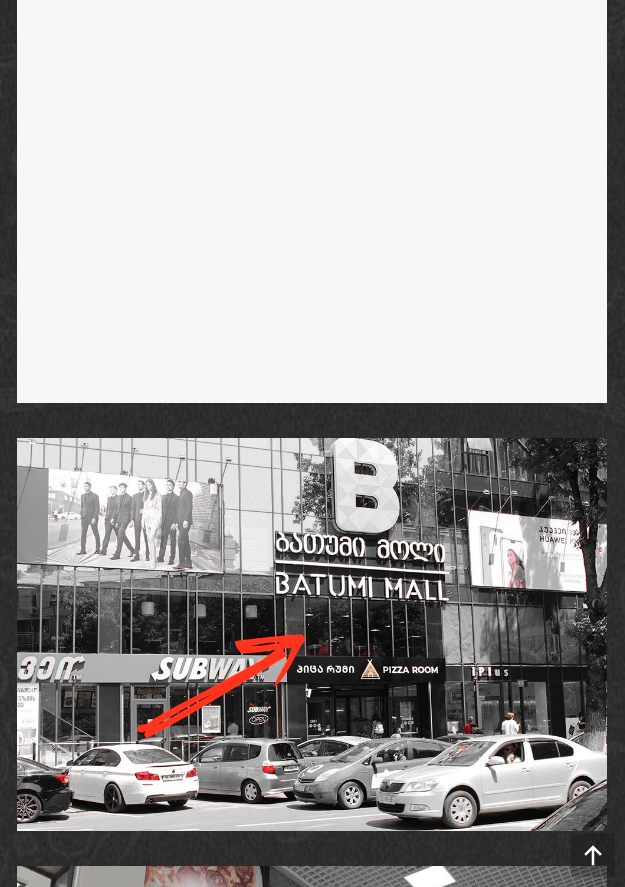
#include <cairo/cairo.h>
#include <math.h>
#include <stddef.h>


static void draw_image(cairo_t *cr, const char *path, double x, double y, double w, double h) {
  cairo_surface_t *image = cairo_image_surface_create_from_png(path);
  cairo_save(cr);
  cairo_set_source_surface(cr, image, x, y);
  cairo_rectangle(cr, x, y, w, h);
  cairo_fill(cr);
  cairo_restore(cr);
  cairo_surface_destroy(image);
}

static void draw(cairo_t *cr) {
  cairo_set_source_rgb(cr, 1, 1, 1);
  cairo_paint(cr);
  draw_image(cr, "images/1.png", 0, 0, 625, 887);
  cairo_set_source_rgb(cr, 247 / 255.0, 247 / 255.0, 247 / 255.0);
  cairo_rectangle(cr, 17, 0, 590, 403);
  cairo_fill(cr);
  draw_image(cr, "images/2.png", 17, 438, 590, 393);
  draw_image(cr, "images/3.png", 17, 866, 590, 21);
  cairo_set_source_rgba(cr, 0, 0, 0, 0.2);
  cairo_rectangle(cr, 571, 833, 44, 44);
  cairo_fill(cr);
  draw_image(cr, "images/4.png", 584, 845, 18, 21);
}

int main(void) {
  cairo_surface_t *surface = cairo_image_surface_create(CAIRO_FORMAT_RGB24, 625, 887);
  cairo_t *cr = cairo_create(surface);
  cairo_font_options_t *options = cairo_font_options_create();
  cairo_font_options_set_hint_metrics(options, CAIRO_HINT_METRICS_OFF);
  cairo_font_options_set_hint_style(options, CAIRO_HINT_STYLE_NONE);
  cairo_set_font_options(cr, options);
  cairo_set_miter_limit(cr, 4);
  draw(cr);
  cairo_surface_write_to_png(surface, "out.png");
  cairo_font_options_destroy(options);
  cairo_destroy(cr);
  cairo_surface_destroy(surface);
  return 0;
}
